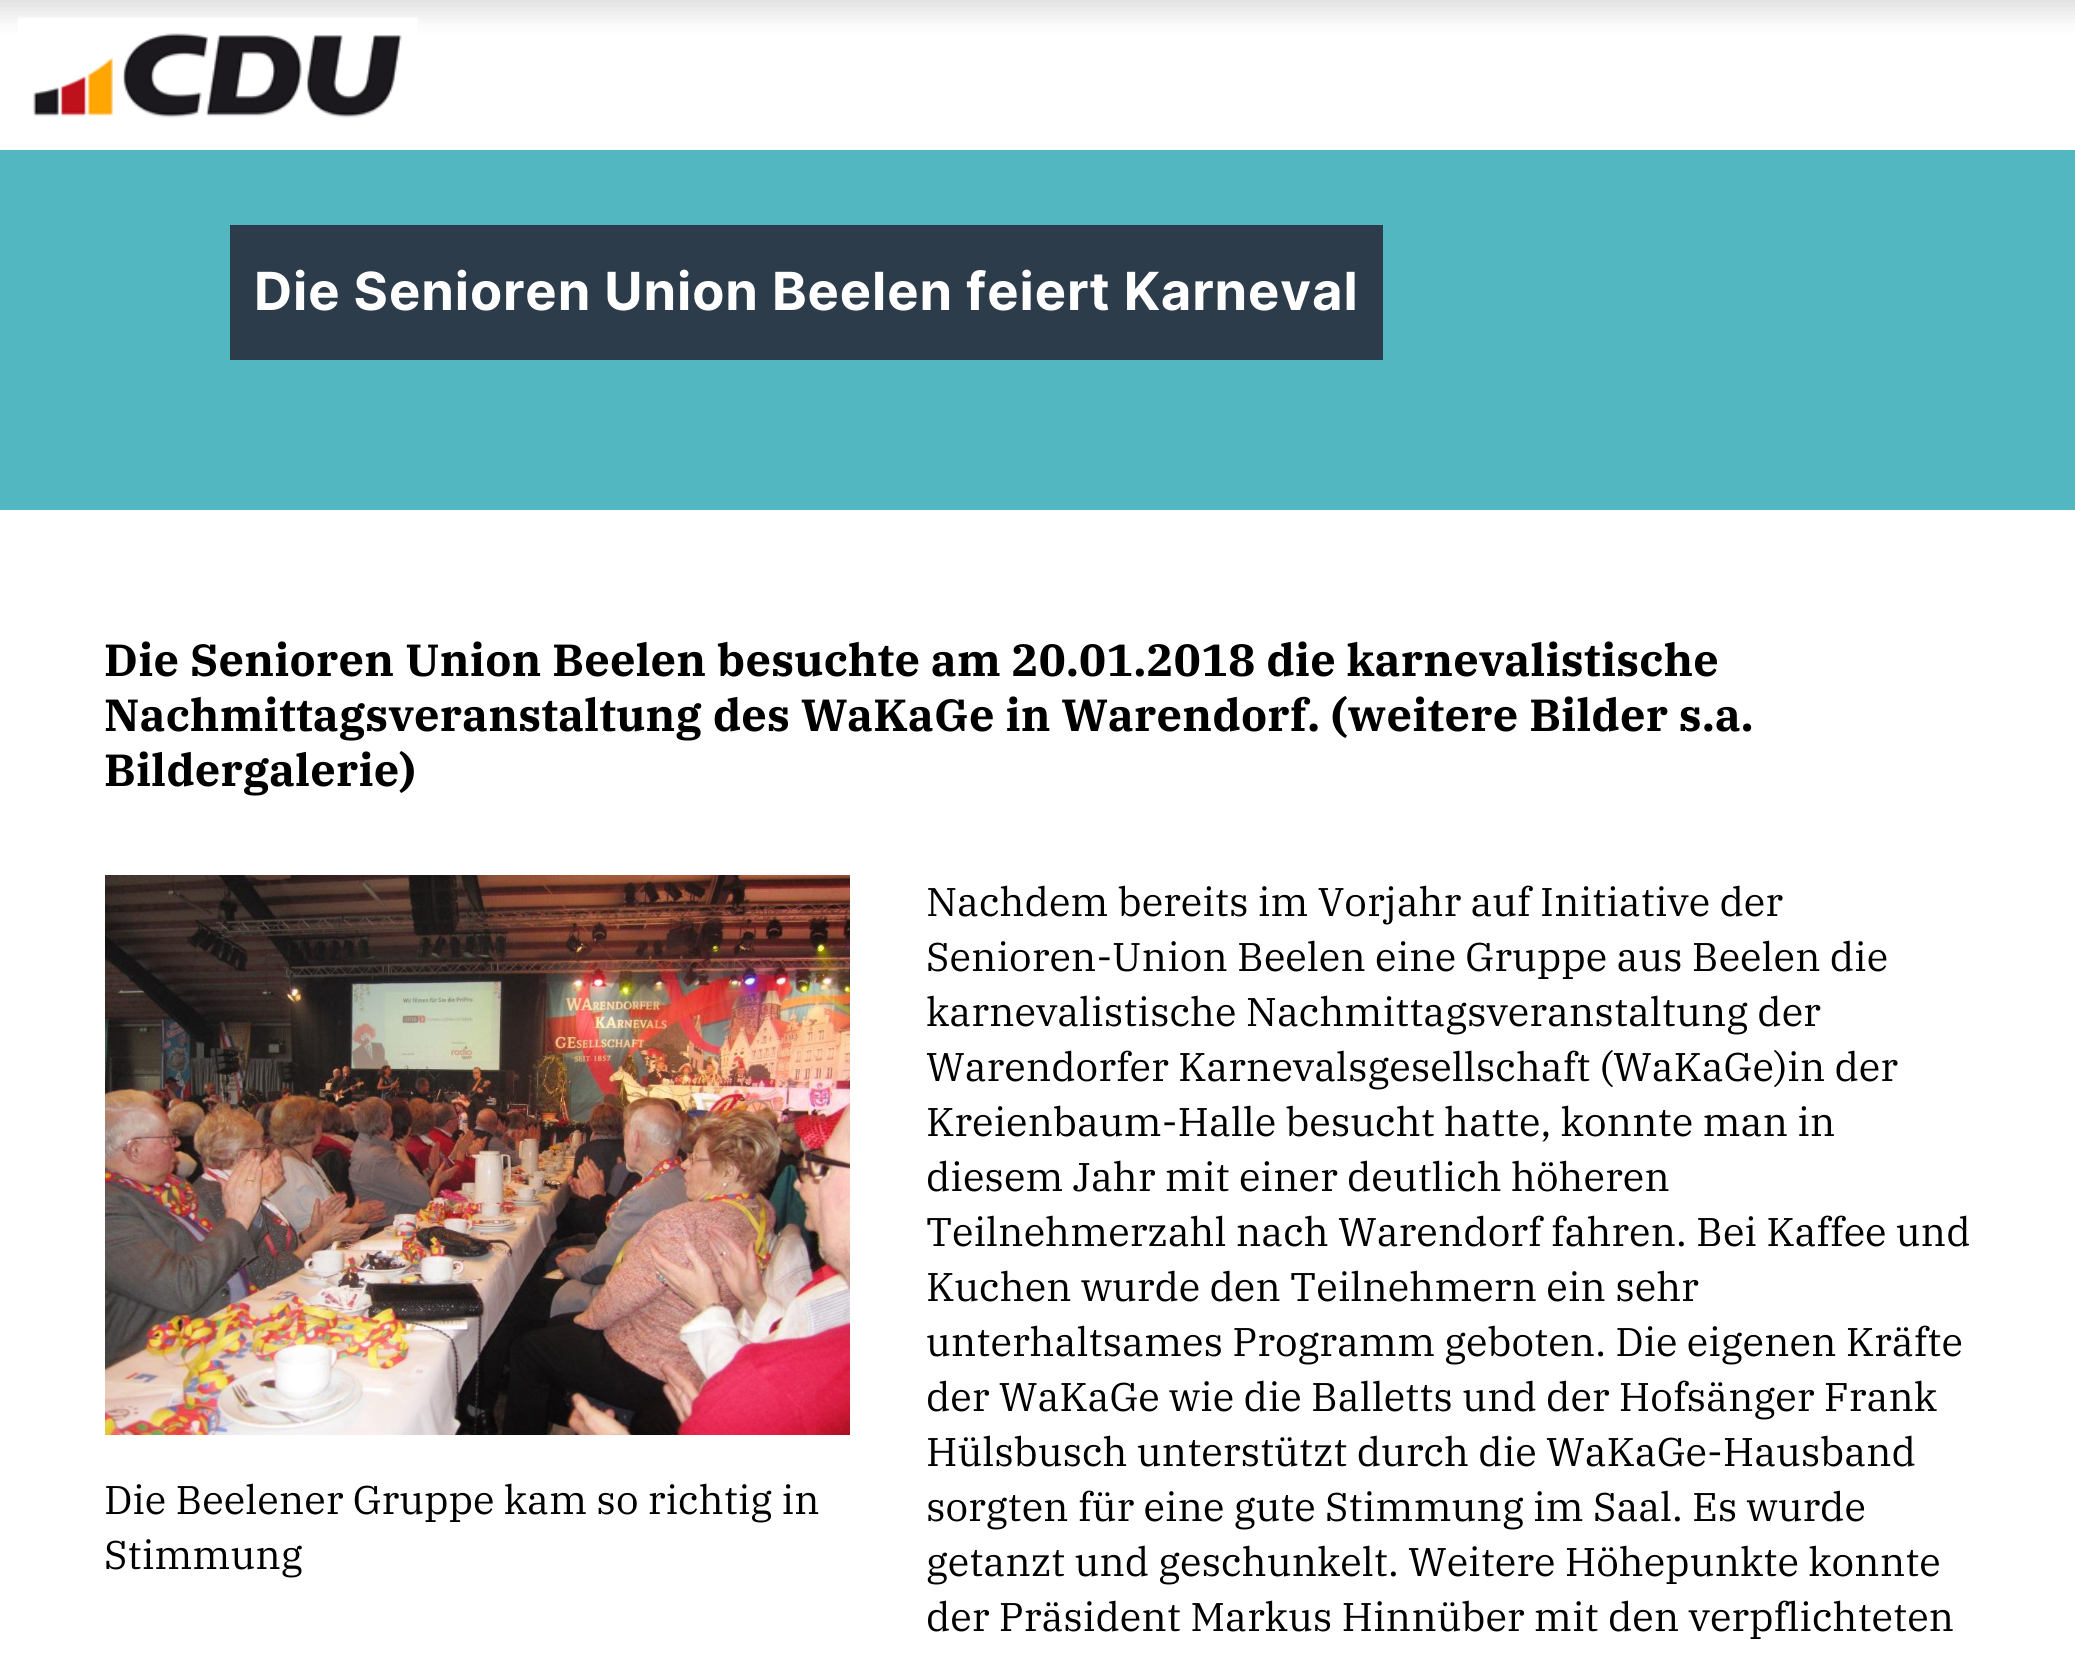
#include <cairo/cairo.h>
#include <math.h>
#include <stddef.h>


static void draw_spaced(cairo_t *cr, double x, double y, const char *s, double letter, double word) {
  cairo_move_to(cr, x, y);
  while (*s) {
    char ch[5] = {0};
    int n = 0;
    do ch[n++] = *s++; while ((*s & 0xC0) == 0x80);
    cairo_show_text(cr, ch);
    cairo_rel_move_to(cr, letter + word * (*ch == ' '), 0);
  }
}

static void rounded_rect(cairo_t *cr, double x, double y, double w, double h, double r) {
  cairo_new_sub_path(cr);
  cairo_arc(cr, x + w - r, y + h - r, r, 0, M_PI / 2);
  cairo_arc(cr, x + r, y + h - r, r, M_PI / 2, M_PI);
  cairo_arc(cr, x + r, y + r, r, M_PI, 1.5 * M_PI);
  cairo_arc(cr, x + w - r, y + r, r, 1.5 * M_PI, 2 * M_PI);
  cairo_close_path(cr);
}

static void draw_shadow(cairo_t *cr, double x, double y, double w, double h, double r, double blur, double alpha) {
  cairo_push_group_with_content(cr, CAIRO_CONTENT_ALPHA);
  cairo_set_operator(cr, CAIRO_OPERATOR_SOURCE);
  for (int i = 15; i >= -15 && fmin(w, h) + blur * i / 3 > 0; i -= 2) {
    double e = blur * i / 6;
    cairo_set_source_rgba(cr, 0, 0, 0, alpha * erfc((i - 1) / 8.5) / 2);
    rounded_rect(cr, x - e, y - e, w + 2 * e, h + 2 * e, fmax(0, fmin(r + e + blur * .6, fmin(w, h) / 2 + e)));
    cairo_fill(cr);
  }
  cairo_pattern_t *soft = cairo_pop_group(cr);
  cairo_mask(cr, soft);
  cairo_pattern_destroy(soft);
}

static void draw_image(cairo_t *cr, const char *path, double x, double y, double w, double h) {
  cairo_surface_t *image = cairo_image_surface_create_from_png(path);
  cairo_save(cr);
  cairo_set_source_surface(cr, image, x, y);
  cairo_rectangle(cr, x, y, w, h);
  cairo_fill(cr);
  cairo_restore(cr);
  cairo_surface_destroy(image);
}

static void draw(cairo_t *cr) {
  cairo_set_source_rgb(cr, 1, 1, 1);
  cairo_paint(cr);
  cairo_set_source_rgb(cr, 0, 0, 0);
  draw_shadow(cr, -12, -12, 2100, 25, 0, 12.5, 0.13);
  draw_image(cr, "images/1.png", 17, 17, 401, 101);
  cairo_set_source_rgb(cr, 82 / 255.0, 183 / 255.0, 193 / 255.0);
  cairo_rectangle(cr, 0, 150, 2075, 360);
  cairo_fill(cr);
  cairo_set_source_rgb(cr, 45 / 255.0, 60 / 255.0, 75 / 255.0);
  cairo_rectangle(cr, 230, 225, 1153, 135);
  cairo_fill(cr);
  draw_image(cr, "images/2.png", 105, 875, 745, 560);
  cairo_select_font_face(cr, "Inter", CAIRO_FONT_SLANT_NORMAL, CAIRO_FONT_WEIGHT_BOLD);
  cairo_set_font_size(cr, 52.5);
  cairo_set_source_rgb(cr, 1, 1, 1);
  draw_spaced(cr, 254, 310, "Die Senioren Union Beelen feiert Karneval", 0.9, 0);
  cairo_select_font_face(cr, "IBM Plex Serif", CAIRO_FONT_SLANT_NORMAL, CAIRO_FONT_WEIGHT_BOLD);
  cairo_set_font_size(cr, 45);
  cairo_set_source_rgb(cr, 0, 0, 0);
  draw_spaced(cr, 104, 676, "Die Senioren Union Beelen besuchte am 20.01.2018 die karnevalistische", 0.25, 0);
  draw_spaced(cr, 104, 731, "Nachmittagsveranstaltung des WaKaGe in Warendorf. (weitere Bilder s.a.", 0.25, 0);
  draw_spaced(cr, 104, 786, "Bildergalerie)", 0.25, 0);
  cairo_select_font_face(cr, "IBM Plex Serif", CAIRO_FONT_SLANT_NORMAL, CAIRO_FONT_WEIGHT_NORMAL);
  cairo_set_font_size(cr, 40);
  cairo_move_to(cr, 926, 916);
  cairo_show_text(cr, "Nachdem bereits im Vorjahr auf Initiative der");
  cairo_move_to(cr, 926, 971);
  cairo_show_text(cr, "Senioren-Union Beelen eine Gruppe aus Beelen die");
  cairo_move_to(cr, 926, 1026);
  cairo_show_text(cr, "karnevalistische Nachmittagsveranstaltung der");
  cairo_move_to(cr, 926, 1081);
  cairo_show_text(cr, "Warendorfer Karnevalsgesellschaft (WaKaGe)in der");
  cairo_move_to(cr, 926, 1136);
  cairo_show_text(cr, "Kreienbaum-Halle besucht hatte, konnte man in");
  cairo_move_to(cr, 926, 1191);
  cairo_show_text(cr, "diesem Jahr mit einer deutlich höheren");
  cairo_move_to(cr, 926, 1246);
  cairo_show_text(cr, "Teilnehmerzahl nach Warendorf fahren. Bei Kaffee und");
  cairo_move_to(cr, 926, 1301);
  cairo_show_text(cr, "Kuchen wurde den Teilnehmern ein sehr");
  cairo_move_to(cr, 926, 1356);
  cairo_show_text(cr, "unterhaltsames Programm geboten. Die eigenen Kräfte");
  cairo_move_to(cr, 926, 1411);
  cairo_show_text(cr, "der WaKaGe wie die Balletts und der Hofsänger Frank");
  cairo_move_to(cr, 926, 1466);
  cairo_show_text(cr, "Hülsbusch unterstützt durch die WaKaGe-Hausband");
  cairo_move_to(cr, 104, 1514);
  cairo_show_text(cr, "Die Beelener Gruppe kam so richtig in");
  cairo_move_to(cr, 104, 1569);
  cairo_show_text(cr, "Stimmung");
  cairo_move_to(cr, 926, 1521);
  cairo_show_text(cr, "sorgten für eine gute Stimmung im Saal. Es wurde");
  cairo_move_to(cr, 926, 1576);
  cairo_show_text(cr, "getanzt und geschunkelt. Weitere Höhepunkte konnte");
  cairo_move_to(cr, 926, 1631);
  cairo_show_text(cr, "der Präsident Markus Hinnüber mit den verpflichteten");
}

int main(void) {
  cairo_surface_t *surface = cairo_image_surface_create(CAIRO_FORMAT_RGB24, 2075, 1660);
  cairo_t *cr = cairo_create(surface);
  cairo_font_options_t *options = cairo_font_options_create();
  cairo_font_options_set_hint_metrics(options, CAIRO_HINT_METRICS_OFF);
  cairo_font_options_set_hint_style(options, CAIRO_HINT_STYLE_NONE);
  cairo_set_font_options(cr, options);
  cairo_set_miter_limit(cr, 4);
  draw(cr);
  cairo_surface_write_to_png(surface, "out.png");
  cairo_font_options_destroy(options);
  cairo_destroy(cr);
  cairo_surface_destroy(surface);
  return 0;
}
